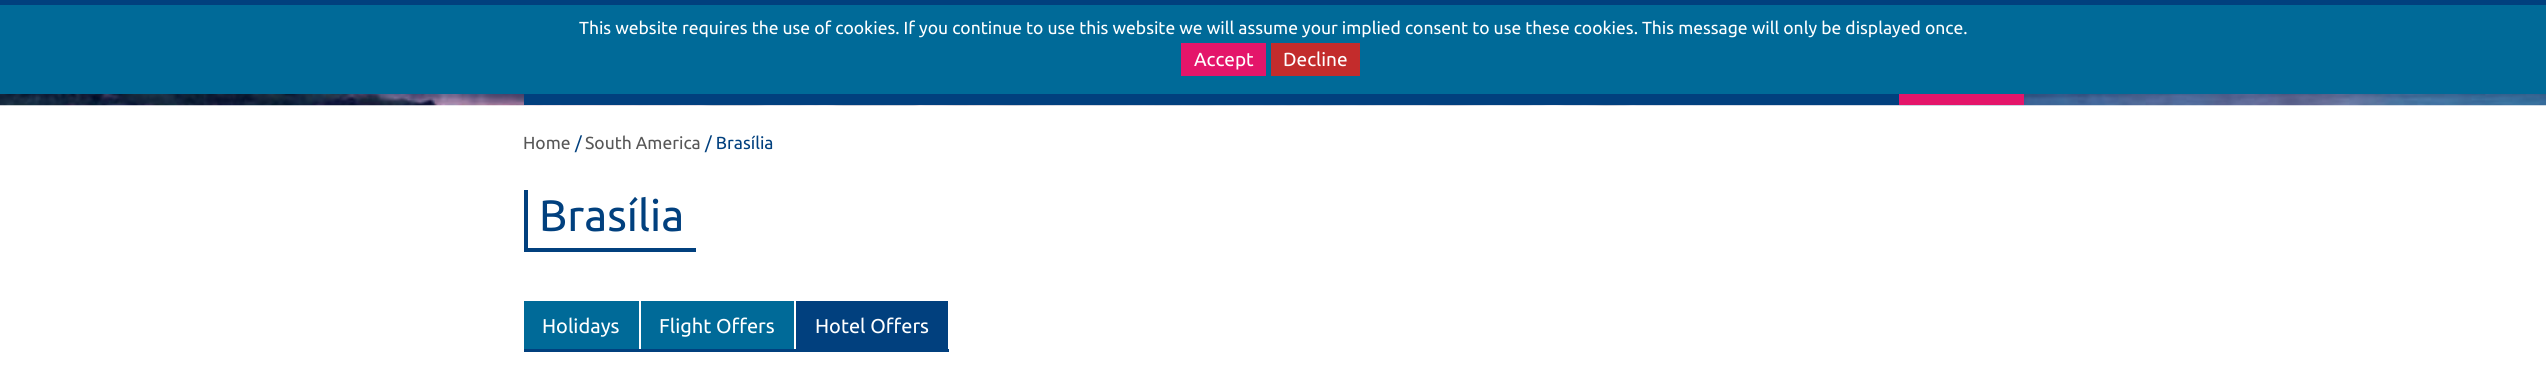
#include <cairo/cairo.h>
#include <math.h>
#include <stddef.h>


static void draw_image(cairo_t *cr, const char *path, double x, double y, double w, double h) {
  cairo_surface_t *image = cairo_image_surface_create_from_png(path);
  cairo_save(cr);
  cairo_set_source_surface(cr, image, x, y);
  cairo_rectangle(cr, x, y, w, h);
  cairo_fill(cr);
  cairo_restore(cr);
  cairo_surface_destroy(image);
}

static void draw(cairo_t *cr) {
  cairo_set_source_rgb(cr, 1, 1, 1);
  cairo_paint(cr);
  cairo_set_source_rgb(cr, 0, 106 / 255.0, 152 / 255.0);
  cairo_rectangle(cr, 0, 5, 2546, 89);
  cairo_fill(cr);
  cairo_set_source_rgb(cr, 1 / 255.0, 64 / 255.0, 126 / 255.0);
  cairo_rectangle(cr, 0, 0, 2546, 5);
  cairo_fill(cr);
  cairo_set_source_rgb(cr, 228 / 255.0, 21 / 255.0, 106 / 255.0);
  cairo_rectangle(cr, 1181, 43, 85, 33);
  cairo_fill(cr);
  cairo_set_source_rgb(cr, 195 / 255.0, 44 / 255.0, 44 / 255.0);
  cairo_rectangle(cr, 1271, 43, 89, 33);
  cairo_fill(cr);
  draw_image(cr, "images/1.png", 0, 94, 2546, 12);
  cairo_set_source_rgb(cr, 1 / 255.0, 64 / 255.0, 126 / 255.0);
  cairo_rectangle(cr, 524, 94, 1375, 11);
  cairo_fill(cr);
  cairo_set_source_rgb(cr, 228 / 255.0, 21 / 255.0, 106 / 255.0);
  cairo_rectangle(cr, 1899, 94, 125, 11);
  cairo_fill(cr);
  cairo_set_source_rgb(cr, 1 / 255.0, 64 / 255.0, 126 / 255.0);
  cairo_rectangle(cr, 524, 248, 172, 4);
  cairo_fill(cr);
  cairo_rectangle(cr, 524, 190, 4, 61);
  cairo_fill(cr);
  cairo_rectangle(cr, 524, 349, 425, 3);
  cairo_fill(cr);
  cairo_set_source_rgb(cr, 0, 106 / 255.0, 152 / 255.0);
  cairo_rectangle(cr, 524, 301, 115, 48);
  cairo_fill(cr);
  cairo_rectangle(cr, 641, 301, 153, 48);
  cairo_fill(cr);
  cairo_set_source_rgb(cr, 1 / 255.0, 64 / 255.0, 126 / 255.0);
  cairo_rectangle(cr, 796, 301, 152, 48);
  cairo_fill(cr);
  cairo_select_font_face(cr, "Ubuntu", CAIRO_FONT_SLANT_NORMAL, CAIRO_FONT_WEIGHT_NORMAL);
  cairo_set_font_size(cr, 17.5);
  cairo_set_source_rgb(cr, 1, 1, 1);
  cairo_move_to(cr, 579, 34);
  cairo_show_text(cr, "This website requires the use of cookies. If you continue to use this website we will assume your implied consent to use these cookies. This message will only be displayed once.");
  cairo_set_font_size(cr, 19);
  cairo_move_to(cr, 1194, 66);
  cairo_show_text(cr, "Accept");
  cairo_move_to(cr, 1283, 66);
  cairo_show_text(cr, "Decline");
  cairo_set_font_size(cr, 17.5);
  cairo_set_source_rgb(cr, 87 / 255.0, 87 / 255.0, 87 / 255.0);
  cairo_move_to(cr, 523, 149);
  cairo_show_text(cr, "Home");
  cairo_set_source_rgb(cr, 1 / 255.0, 64 / 255.0, 126 / 255.0);
  cairo_move_to(cr, 575, 149);
  cairo_show_text(cr, "/");
  cairo_set_source_rgb(cr, 87 / 255.0, 87 / 255.0, 87 / 255.0);
  cairo_move_to(cr, 585, 149);
  cairo_show_text(cr, "South America");
  cairo_set_source_rgb(cr, 1 / 255.0, 64 / 255.0, 126 / 255.0);
  cairo_move_to(cr, 705, 149);
  cairo_show_text(cr, "/ Brasília");
  cairo_set_font_size(cr, 44);
  cairo_move_to(cr, 539, 231);
  cairo_show_text(cr, "Brasília");
  cairo_set_font_size(cr, 20);
  cairo_set_source_rgb(cr, 1, 1, 1);
  cairo_move_to(cr, 542, 333);
  cairo_show_text(cr, "Holidays");
  cairo_move_to(cr, 659, 333);
  cairo_show_text(cr, "Flight Offers");
  cairo_move_to(cr, 815, 333);
  cairo_show_text(cr, "Hotel Offers");
}

int main(void) {
  cairo_surface_t *surface = cairo_image_surface_create(CAIRO_FORMAT_RGB24, 2546, 376);
  cairo_t *cr = cairo_create(surface);
  cairo_font_options_t *options = cairo_font_options_create();
  cairo_font_options_set_hint_metrics(options, CAIRO_HINT_METRICS_OFF);
  cairo_font_options_set_hint_style(options, CAIRO_HINT_STYLE_NONE);
  cairo_set_font_options(cr, options);
  cairo_set_miter_limit(cr, 4);
  draw(cr);
  cairo_surface_write_to_png(surface, "out.png");
  cairo_font_options_destroy(options);
  cairo_destroy(cr);
  cairo_surface_destroy(surface);
  return 0;
}
